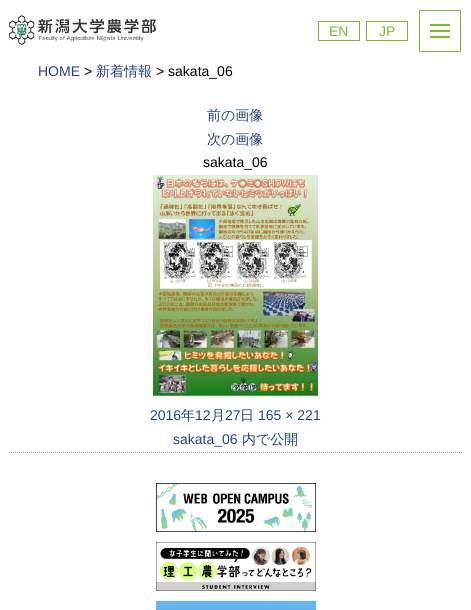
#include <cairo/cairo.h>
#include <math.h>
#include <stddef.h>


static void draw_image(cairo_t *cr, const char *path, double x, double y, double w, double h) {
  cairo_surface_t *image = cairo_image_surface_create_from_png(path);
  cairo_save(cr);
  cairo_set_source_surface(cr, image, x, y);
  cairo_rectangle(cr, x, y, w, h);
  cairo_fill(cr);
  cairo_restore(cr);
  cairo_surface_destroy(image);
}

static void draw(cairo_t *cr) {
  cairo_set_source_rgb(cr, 1, 1, 1);
  cairo_paint(cr);
  draw_image(cr, "images/1.png", 9, 15, 147, 30);
  cairo_rectangle(cr, 318.5, 21.5, 41, 19);
  cairo_set_source_rgb(cr, 124 / 255.0, 185 / 255.0, 48 / 255.0);
  cairo_set_line_width(cr, 1);
  cairo_stroke(cr);
  cairo_rectangle(cr, 366.5, 21.5, 41, 19);
  cairo_stroke(cr);
  cairo_rectangle(cr, 419.5, 10.5, 41, 41);
  cairo_stroke(cr);
  cairo_rectangle(cr, 430, 24, 20, 2);
  cairo_fill(cr);
  cairo_rectangle(cr, 430, 30, 20, 2);
  cairo_fill(cr);
  cairo_rectangle(cr, 430, 36, 20, 2);
  cairo_fill(cr);
  cairo_new_path(cr);
  cairo_move_to(cr, 9, 452.5);
  cairo_line_to(cr, 462, 452.5);
  cairo_set_source_rgb(cr, 153 / 255.0, 153 / 255.0, 153 / 255.0);
  cairo_set_dash(cr, (double[]){1, 1}, 2, 0);
  cairo_stroke(cr);
  draw_image(cr, "images/2.png", 153, 175, 165, 221);
  draw_image(cr, "images/3.png", 156, 483, 160, 49);
  draw_image(cr, "images/4.png", 156, 542, 160, 49);
  draw_image(cr, "images/5.png", 156, 601, 160, 9);
  cairo_select_font_face(cr, "Liberation Sans", CAIRO_FONT_SLANT_NORMAL, CAIRO_FONT_WEIGHT_NORMAL);
  cairo_set_font_size(cr, 14);
  cairo_set_source_rgb(cr, 124 / 255.0, 185 / 255.0, 48 / 255.0);
  cairo_move_to(cr, 329, 36);
  cairo_show_text(cr, "EN");
  cairo_move_to(cr, 379, 36);
  cairo_show_text(cr, "JP");
  cairo_set_source_rgb(cr, 33 / 255.0, 67 / 255.0, 130 / 255.0);
  cairo_move_to(cr, 38, 76);
  cairo_show_text(cr, "HOME");
  cairo_set_source_rgb(cr, 0, 0, 0);
  cairo_move_to(cr, 84, 76);
  cairo_show_text(cr, ">");
  cairo_select_font_face(cr, "WenQuanYi Zen Hei Medium", CAIRO_FONT_SLANT_NORMAL, CAIRO_FONT_WEIGHT_NORMAL);
  cairo_set_source_rgb(cr, 33 / 255.0, 67 / 255.0, 130 / 255.0);
  cairo_move_to(cr, 96, 76);
  cairo_show_text(cr, "新着情報");
  cairo_select_font_face(cr, "Liberation Sans", CAIRO_FONT_SLANT_NORMAL, CAIRO_FONT_WEIGHT_NORMAL);
  cairo_set_source_rgb(cr, 0, 0, 0);
  cairo_move_to(cr, 156, 76);
  cairo_show_text(cr, "> sakata_06");
  cairo_select_font_face(cr, "WenQuanYi Zen Hei Medium", CAIRO_FONT_SLANT_NORMAL, CAIRO_FONT_WEIGHT_NORMAL);
  cairo_set_source_rgb(cr, 33 / 255.0, 67 / 255.0, 130 / 255.0);
  cairo_move_to(cr, 207, 120);
  cairo_show_text(cr, "前の画像");
  cairo_move_to(cr, 207, 144);
  cairo_show_text(cr, "次の画像");
  cairo_select_font_face(cr, "Liberation Sans", CAIRO_FONT_SLANT_NORMAL, CAIRO_FONT_WEIGHT_NORMAL);
  cairo_set_source_rgb(cr, 0, 0, 0);
  cairo_move_to(cr, 203, 167);
  cairo_show_text(cr, "sakata_06");
  cairo_set_source_rgb(cr, 33 / 255.0, 67 / 255.0, 130 / 255.0);
  cairo_move_to(cr, 150, 420);
  cairo_show_text(cr, "2016");
  cairo_select_font_face(cr, "WenQuanYi Zen Hei Medium", CAIRO_FONT_SLANT_NORMAL, CAIRO_FONT_WEIGHT_NORMAL);
  cairo_move_to(cr, 181, 420);
  cairo_show_text(cr, "年");
  cairo_select_font_face(cr, "Liberation Sans", CAIRO_FONT_SLANT_NORMAL, CAIRO_FONT_WEIGHT_NORMAL);
  cairo_move_to(cr, 195, 420);
  cairo_show_text(cr, "12");
  cairo_select_font_face(cr, "WenQuanYi Zen Hei Medium", CAIRO_FONT_SLANT_NORMAL, CAIRO_FONT_WEIGHT_NORMAL);
  cairo_move_to(cr, 211, 420);
  cairo_show_text(cr, "月");
  cairo_select_font_face(cr, "Liberation Sans", CAIRO_FONT_SLANT_NORMAL, CAIRO_FONT_WEIGHT_NORMAL);
  cairo_move_to(cr, 225, 420);
  cairo_show_text(cr, "27");
  cairo_select_font_face(cr, "WenQuanYi Zen Hei Medium", CAIRO_FONT_SLANT_NORMAL, CAIRO_FONT_WEIGHT_NORMAL);
  cairo_move_to(cr, 240, 420);
  cairo_show_text(cr, "日");
  cairo_select_font_face(cr, "Liberation Sans", CAIRO_FONT_SLANT_NORMAL, CAIRO_FONT_WEIGHT_NORMAL);
  cairo_move_to(cr, 258, 420);
  cairo_show_text(cr, "165 × 221");
  cairo_move_to(cr, 173, 444);
  cairo_show_text(cr, "sakata_06");
  cairo_select_font_face(cr, "WenQuanYi Zen Hei Medium", CAIRO_FONT_SLANT_NORMAL, CAIRO_FONT_WEIGHT_NORMAL);
  cairo_move_to(cr, 242, 444);
  cairo_show_text(cr, "内で公開");
}

int main(void) {
  cairo_surface_t *surface = cairo_image_surface_create(CAIRO_FORMAT_RGB24, 471, 610);
  cairo_t *cr = cairo_create(surface);
  cairo_font_options_t *options = cairo_font_options_create();
  cairo_font_options_set_hint_metrics(options, CAIRO_HINT_METRICS_OFF);
  cairo_font_options_set_hint_style(options, CAIRO_HINT_STYLE_NONE);
  cairo_set_font_options(cr, options);
  cairo_set_miter_limit(cr, 4);
  draw(cr);
  cairo_surface_write_to_png(surface, "out.png");
  cairo_font_options_destroy(options);
  cairo_destroy(cr);
  cairo_surface_destroy(surface);
  return 0;
}
